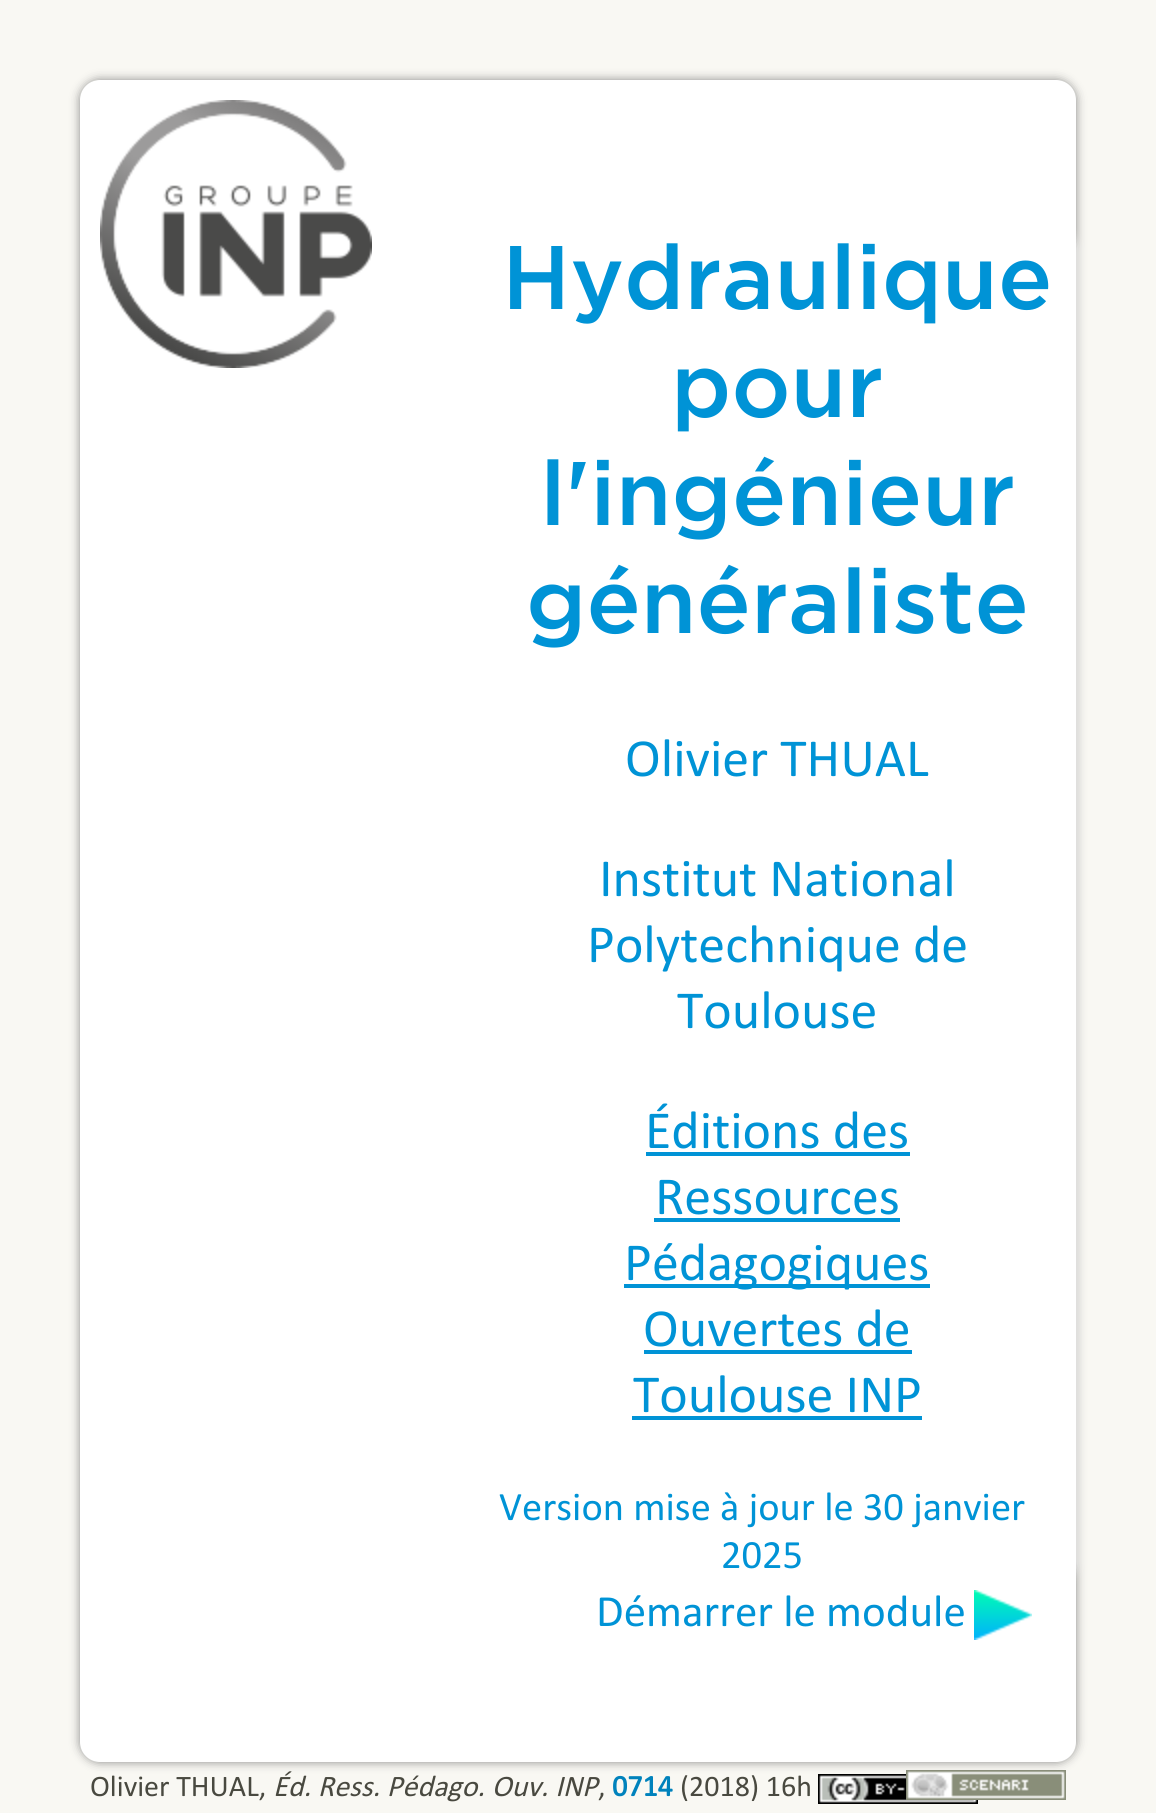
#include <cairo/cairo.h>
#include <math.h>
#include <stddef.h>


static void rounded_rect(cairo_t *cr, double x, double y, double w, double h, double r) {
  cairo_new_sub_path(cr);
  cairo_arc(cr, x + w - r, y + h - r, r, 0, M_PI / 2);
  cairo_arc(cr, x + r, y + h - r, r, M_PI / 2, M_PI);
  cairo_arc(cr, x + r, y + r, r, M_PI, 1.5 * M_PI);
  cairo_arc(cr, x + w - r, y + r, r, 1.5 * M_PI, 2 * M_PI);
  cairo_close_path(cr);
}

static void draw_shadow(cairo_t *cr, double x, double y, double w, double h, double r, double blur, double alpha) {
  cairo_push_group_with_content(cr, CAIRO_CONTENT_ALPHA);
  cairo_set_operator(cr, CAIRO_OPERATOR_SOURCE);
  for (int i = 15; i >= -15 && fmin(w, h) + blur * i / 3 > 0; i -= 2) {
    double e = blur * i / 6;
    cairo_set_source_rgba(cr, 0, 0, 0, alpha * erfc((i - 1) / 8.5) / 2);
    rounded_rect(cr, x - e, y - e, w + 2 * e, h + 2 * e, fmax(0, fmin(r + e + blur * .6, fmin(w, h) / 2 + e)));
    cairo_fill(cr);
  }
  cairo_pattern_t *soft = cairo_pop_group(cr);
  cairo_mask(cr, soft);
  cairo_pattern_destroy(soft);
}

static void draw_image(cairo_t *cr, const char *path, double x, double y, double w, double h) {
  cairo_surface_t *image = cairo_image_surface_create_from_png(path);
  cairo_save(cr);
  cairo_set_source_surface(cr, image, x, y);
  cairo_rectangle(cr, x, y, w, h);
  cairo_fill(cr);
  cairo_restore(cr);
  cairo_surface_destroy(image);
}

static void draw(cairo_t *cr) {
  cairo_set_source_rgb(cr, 249 / 255.0, 248 / 255.0, 243 / 255.0);
  cairo_paint(cr);
  draw_image(cr, "images/3.png", 818, 1774, 160, 30);
  draw_image(cr, "images/4.png", 906, 1770, 160, 30);
  cairo_set_source_rgb(cr, 136 / 255.0, 136 / 255.0, 136 / 255.0);
  draw_shadow(cr, 80, 80, 996, 1682, 20, 5, 1);
  cairo_set_source_rgb(cr, 1, 1, 1);
  rounded_rect(cr, 80, 80, 996, 1682, 20);
  cairo_fill(cr);
  draw_image(cr, "images/1.png", 100, 100, 272, 268);
  cairo_save(cr);
  cairo_set_fill_rule(cr, CAIRO_FILL_RULE_EVEN_ODD);
  cairo_new_path(cr);
  cairo_move_to(cr, 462, 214);
  cairo_line_to(cr, 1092, 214);
  cairo_line_to(cr, 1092, 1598);
  cairo_line_to(cr, 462, 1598);
  cairo_close_path(cr);
  cairo_move_to(cr, 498, 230);
  cairo_line_to(cr, 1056, 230);
  cairo_curve_to(cr, 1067, 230, 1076, 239, 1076, 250);
  cairo_line_to(cr, 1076, 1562);
  cairo_curve_to(cr, 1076, 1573, 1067, 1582, 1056, 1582);
  cairo_line_to(cr, 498, 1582);
  cairo_curve_to(cr, 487, 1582, 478, 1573, 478, 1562);
  cairo_line_to(cr, 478, 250);
  cairo_curve_to(cr, 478, 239, 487, 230, 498, 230);
  cairo_close_path(cr);
  cairo_clip(cr);
  cairo_set_source_rgb(cr, 1, 1, 1);
  draw_shadow(cr, 478, 230, 598, 1352, 20, 5, 1);
  cairo_restore(cr);
  cairo_set_source_rgb(cr, 0, 147 / 255.0, 214 / 255.0);
  cairo_rectangle(cr, 646, 1152, 264, 4);
  cairo_fill(cr);
  cairo_rectangle(cr, 654, 1218, 246, 4);
  cairo_fill(cr);
  cairo_rectangle(cr, 624, 1284, 306, 4);
  cairo_fill(cr);
  cairo_rectangle(cr, 644, 1350, 268, 4);
  cairo_fill(cr);
  cairo_rectangle(cr, 632, 1416, 290, 4);
  cairo_fill(cr);
  draw_image(cr, "images/2.png", 974, 1590, 58, 50);
  cairo_select_font_face(cr, "Gotham Medium", CAIRO_FONT_SLANT_NORMAL, CAIRO_FONT_WEIGHT_NORMAL);
  cairo_set_font_size(cr, 90);
  cairo_move_to(cr, 502, 309);
  cairo_show_text(cr, "Hydraulique");
  cairo_move_to(cr, 671, 417);
  cairo_show_text(cr, "pour");
  cairo_move_to(cr, 540, 525);
  cairo_show_text(cr, "l'ingénieur");
  cairo_move_to(cr, 526, 633);
  cairo_show_text(cr, "généraliste");
  cairo_select_font_face(cr, "Calibri", CAIRO_FONT_SLANT_NORMAL, CAIRO_FONT_WEIGHT_NORMAL);
  cairo_set_font_size(cr, 54);
  cairo_move_to(cr, 625, 776);
  cairo_show_text(cr, "Olivier THUAL");
  cairo_move_to(cr, 599, 896);
  cairo_show_text(cr, "Institut National");
  cairo_move_to(cr, 587, 962);
  cairo_show_text(cr, "Polytechnique de");
  cairo_move_to(cr, 677, 1028);
  cairo_show_text(cr, "Toulouse");
  cairo_move_to(cr, 645, 1148);
  cairo_show_text(cr, "Éditions des");
  cairo_move_to(cr, 655, 1214);
  cairo_show_text(cr, "Ressources");
  cairo_move_to(cr, 624, 1280);
  cairo_show_text(cr, "Pédagogiques");
  cairo_move_to(cr, 643, 1346);
  cairo_show_text(cr, "Ouvertes de");
  cairo_move_to(cr, 633, 1412);
  cairo_show_text(cr, "Toulouse INP");
  cairo_set_font_size(cr, 40.5);
  cairo_move_to(cr, 499, 1520);
  cairo_show_text(cr, "Version mise à jour le 30 janvier");
  cairo_move_to(cr, 721, 1568);
  cairo_show_text(cr, "2025");
  cairo_set_font_size(cr, 45);
  cairo_move_to(cr, 596, 1626);
  cairo_show_text(cr, "Démarrer le module");
  cairo_set_font_size(cr, 30);
  cairo_set_source_rgb(cr, 73 / 255.0, 73 / 255.0, 64 / 255.0);
  cairo_move_to(cr, 90, 1796);
  cairo_show_text(cr, "Olivier THUAL,");
  cairo_select_font_face(cr, "Calibri", CAIRO_FONT_SLANT_ITALIC, CAIRO_FONT_WEIGHT_NORMAL);
  cairo_move_to(cr, 273, 1796);
  cairo_show_text(cr, "Éd. Ress. Pédago. Ouv. INP");
  cairo_select_font_face(cr, "Calibri", CAIRO_FONT_SLANT_NORMAL, CAIRO_FONT_WEIGHT_NORMAL);
  cairo_move_to(cr, 598, 1796);
  cairo_show_text(cr, ",");
  cairo_select_font_face(cr, "Calibri", CAIRO_FONT_SLANT_NORMAL, CAIRO_FONT_WEIGHT_BOLD);
  cairo_set_source_rgb(cr, 0, 130 / 255.0, 188 / 255.0);
  cairo_move_to(cr, 612, 1796);
  cairo_show_text(cr, "0714");
  cairo_select_font_face(cr, "Calibri", CAIRO_FONT_SLANT_NORMAL, CAIRO_FONT_WEIGHT_NORMAL);
  cairo_set_source_rgb(cr, 73 / 255.0, 73 / 255.0, 64 / 255.0);
  cairo_move_to(cr, 680, 1796);
  cairo_show_text(cr, "(2018) 16h");
}

int main(void) {
  cairo_surface_t *surface = cairo_image_surface_create(CAIRO_FORMAT_RGB24, 1156, 1813);
  cairo_t *cr = cairo_create(surface);
  cairo_font_options_t *options = cairo_font_options_create();
  cairo_font_options_set_hint_metrics(options, CAIRO_HINT_METRICS_OFF);
  cairo_font_options_set_hint_style(options, CAIRO_HINT_STYLE_NONE);
  cairo_set_font_options(cr, options);
  cairo_set_miter_limit(cr, 4);
  draw(cr);
  cairo_surface_write_to_png(surface, "out.png");
  cairo_font_options_destroy(options);
  cairo_destroy(cr);
  cairo_surface_destroy(surface);
  return 0;
}
